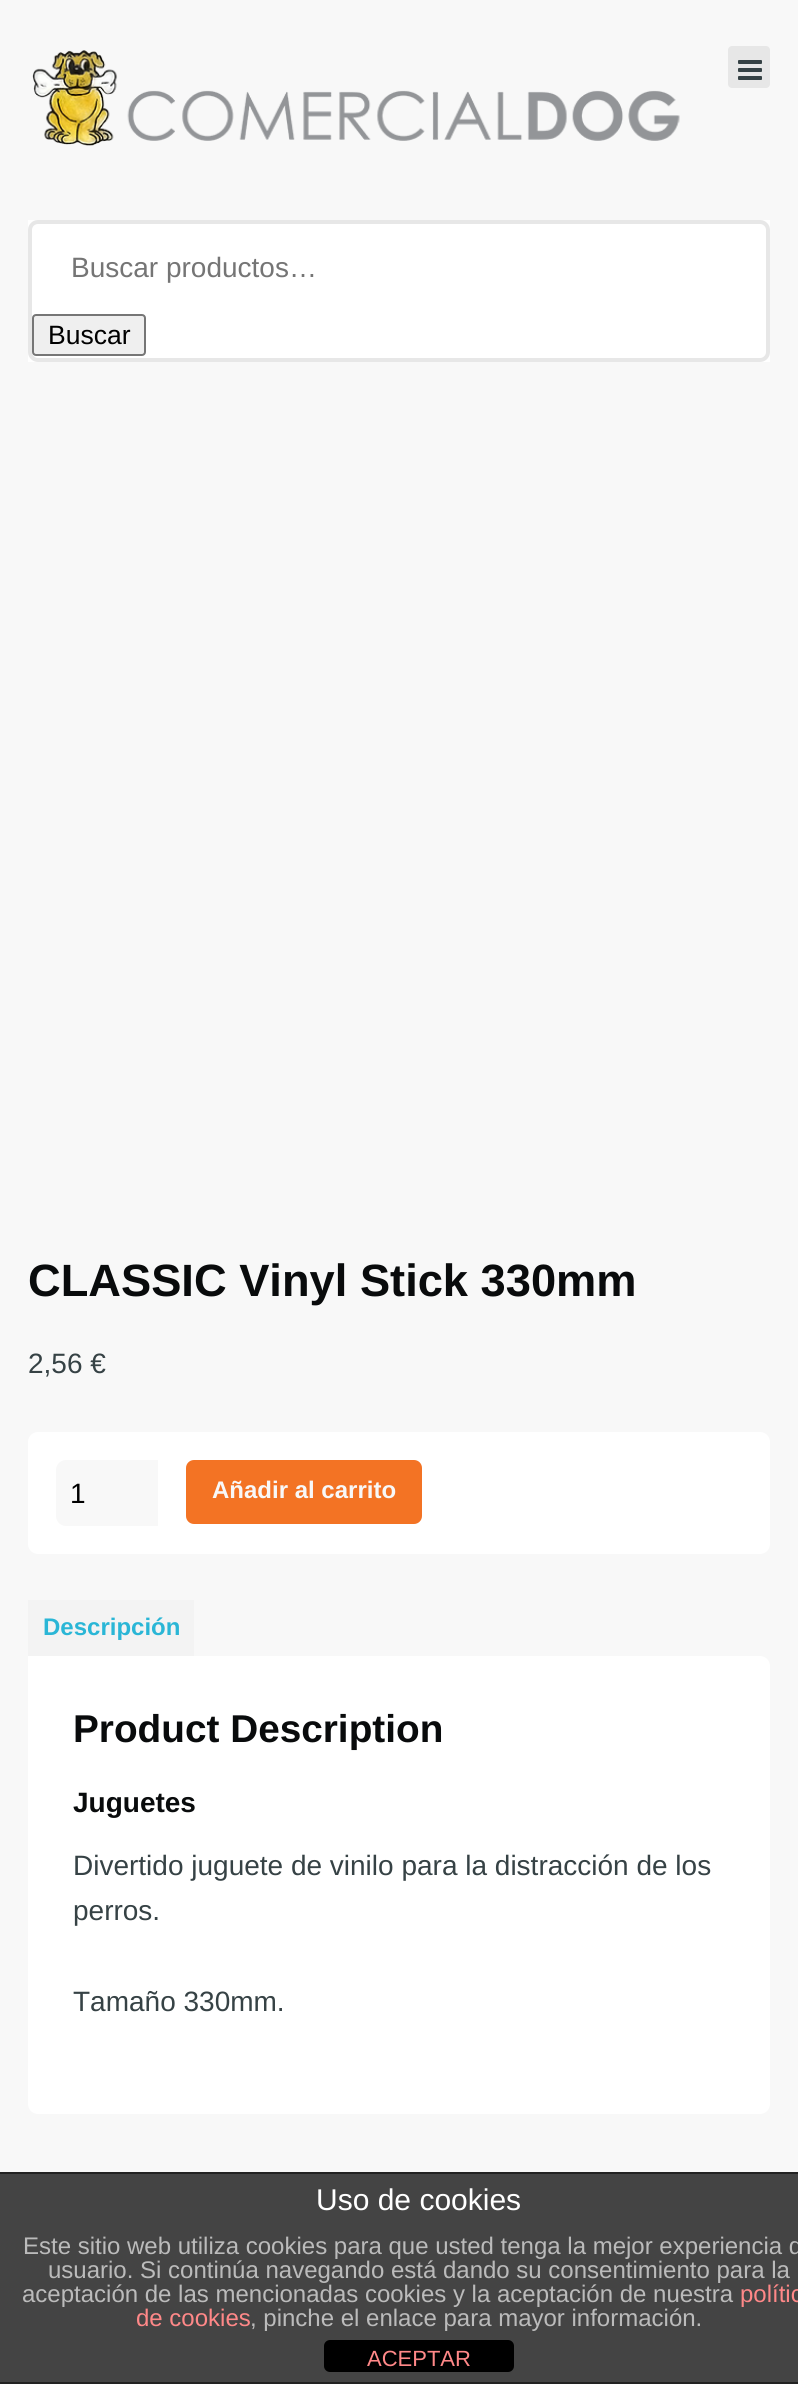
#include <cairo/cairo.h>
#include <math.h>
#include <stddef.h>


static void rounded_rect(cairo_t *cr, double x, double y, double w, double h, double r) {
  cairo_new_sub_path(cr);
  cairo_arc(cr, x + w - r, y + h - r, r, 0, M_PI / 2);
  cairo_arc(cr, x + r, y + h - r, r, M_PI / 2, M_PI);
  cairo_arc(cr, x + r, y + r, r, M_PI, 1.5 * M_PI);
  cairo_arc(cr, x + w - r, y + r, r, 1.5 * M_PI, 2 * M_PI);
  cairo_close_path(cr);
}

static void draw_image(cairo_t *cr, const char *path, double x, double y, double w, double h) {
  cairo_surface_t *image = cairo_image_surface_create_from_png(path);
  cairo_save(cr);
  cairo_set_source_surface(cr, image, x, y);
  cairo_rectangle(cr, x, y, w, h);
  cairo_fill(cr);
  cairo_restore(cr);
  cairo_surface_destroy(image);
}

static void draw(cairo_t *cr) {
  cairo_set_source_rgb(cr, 248 / 255.0, 248 / 255.0, 248 / 255.0);
  cairo_paint(cr);
  draw_image(cr, "images/1.png", 32, 50, 648, 96);
  cairo_set_source_rgb(cr, 231 / 255.0, 231 / 255.0, 231 / 255.0);
  rounded_rect(cr, 728, 46, 42, 42, 4);
  cairo_fill(cr);
  draw_image(cr, "images/2.png", 738, 60, 24, 20);
  cairo_set_source_rgb(cr, 1, 1, 1);
  cairo_rectangle(cr, 28, 220, 742, 142);
  cairo_fill(cr);
  rounded_rect(cr, 30, 222, 738, 138, 8);
  cairo_set_source_rgb(cr, 231 / 255.0, 231 / 255.0, 231 / 255.0);
  cairo_set_line_width(cr, 4);
  cairo_stroke(cr);
  cairo_set_source_rgb(cr, 239 / 255.0, 239 / 255.0, 239 / 255.0);
  rounded_rect(cr, 33, 315, 112, 40, 3);
  cairo_fill_preserve(cr);
  cairo_set_source_rgb(cr, 118 / 255.0, 118 / 255.0, 118 / 255.0);
  cairo_set_line_width(cr, 2);
  cairo_stroke(cr);
  cairo_set_source_rgb(cr, 1, 1, 1);
  rounded_rect(cr, 28, 1432, 742, 122, 10);
  cairo_fill(cr);
  cairo_set_source_rgb(cr, 248 / 255.0, 248 / 255.0, 248 / 255.0);
  cairo_new_path(cr);
  cairo_move_to(cr, 66, 1460);
  cairo_line_to(cr, 158, 1460);
  cairo_line_to(cr, 158, 1526);
  cairo_line_to(cr, 66, 1526);
  cairo_curve_to(cr, 60.5, 1526, 56, 1521.5, 56, 1516);
  cairo_line_to(cr, 56, 1470);
  cairo_curve_to(cr, 56, 1464.5, 60.5, 1460, 66, 1460);
  cairo_close_path(cr);
  cairo_fill(cr);
  cairo_set_source_rgb(cr, 243 / 255.0, 115 / 255.0, 36 / 255.0);
  rounded_rect(cr, 186, 1460, 236, 64, 8);
  cairo_fill(cr);
  cairo_set_source_rgb(cr, 243 / 255.0, 243 / 255.0, 243 / 255.0);
  cairo_rectangle(cr, 28, 1600, 166, 56);
  cairo_fill(cr);
  cairo_set_source_rgb(cr, 1, 1, 1);
  cairo_new_path(cr);
  cairo_move_to(cr, 28, 1656);
  cairo_line_to(cr, 760, 1656);
  cairo_curve_to(cr, 765.5, 1656, 770, 1660.5, 770, 1666);
  cairo_line_to(cr, 770, 2104);
  cairo_curve_to(cr, 770, 2109.5, 765.5, 2114, 760, 2114);
  cairo_line_to(cr, 38, 2114);
  cairo_curve_to(cr, 32.5, 2114, 28, 2109.5, 28, 2104);
  cairo_close_path(cr);
  cairo_fill(cr);
  cairo_set_source_rgb(cr, 68 / 255.0, 68 / 255.0, 68 / 255.0);
  cairo_rectangle(cr, 0, 2174, 798, 208);
  cairo_fill(cr);
  cairo_set_source_rgb(cr, 34 / 255.0, 34 / 255.0, 34 / 255.0);
  cairo_rectangle(cr, 0, 2172, 798, 2);
  cairo_fill(cr);
  cairo_rectangle(cr, 0, 2382, 798, 2);
  cairo_fill(cr);
  cairo_set_source_rgb(cr, 0, 0, 0);
  rounded_rect(cr, 324, 2340, 190, 32, 6);
  cairo_fill(cr);
  cairo_select_font_face(cr, "Liberation Sans", CAIRO_FONT_SLANT_NORMAL, CAIRO_FONT_WEIGHT_NORMAL);
  cairo_set_font_size(cr, 28);
  cairo_set_source_rgb(cr, 117 / 255.0, 117 / 255.0, 117 / 255.0);
  cairo_move_to(cr, 71, 277);
  cairo_show_text(cr, "Buscar productos…");
  cairo_set_font_size(cr, 26.5);
  cairo_set_source_rgb(cr, 0, 0, 0);
  cairo_move_to(cr, 48, 344);
  cairo_show_text(cr, "Buscar");
  cairo_select_font_face(cr, "Liberation Sans", CAIRO_FONT_SLANT_NORMAL, CAIRO_FONT_WEIGHT_BOLD);
  cairo_set_font_size(cr, 45.25);
  cairo_set_source_rgb(cr, 9 / 255.0, 11 / 255.0, 12 / 255.0);
  cairo_move_to(cr, 28, 1296);
  cairo_show_text(cr, "CLASSIC Vinyl Stick 330mm");
  cairo_select_font_face(cr, "Liberation Sans", CAIRO_FONT_SLANT_NORMAL, CAIRO_FONT_WEIGHT_NORMAL);
  cairo_set_font_size(cr, 28);
  cairo_set_source_rgb(cr, 54 / 255.0, 66 / 255.0, 69 / 255.0);
  cairo_move_to(cr, 28, 1373);
  cairo_show_text(cr, "2,56 €");
  cairo_set_source_rgb(cr, 0, 0, 0);
  cairo_move_to(cr, 70, 1503);
  cairo_show_text(cr, "1");
  cairo_select_font_face(cr, "Liberation Sans", CAIRO_FONT_SLANT_NORMAL, CAIRO_FONT_WEIGHT_BOLD);
  cairo_set_font_size(cr, 24);
  cairo_set_source_rgb(cr, 248 / 255.0, 248 / 255.0, 248 / 255.0);
  cairo_move_to(cr, 212, 1498);
  cairo_show_text(cr, "Añadir al carrito");
  cairo_set_source_rgb(cr, 42 / 255.0, 182 / 255.0, 214 / 255.0);
  cairo_move_to(cr, 43, 1635);
  cairo_show_text(cr, "Descripción");
  cairo_set_font_size(cr, 38.75);
  cairo_set_source_rgb(cr, 9 / 255.0, 11 / 255.0, 12 / 255.0);
  cairo_move_to(cr, 73, 1742);
  cairo_show_text(cr, "Product Description");
  cairo_set_font_size(cr, 28);
  cairo_move_to(cr, 73, 1812);
  cairo_show_text(cr, "Juguetes");
  cairo_select_font_face(cr, "Liberation Sans", CAIRO_FONT_SLANT_NORMAL, CAIRO_FONT_WEIGHT_NORMAL);
  cairo_set_source_rgb(cr, 54 / 255.0, 66 / 255.0, 69 / 255.0);
  cairo_move_to(cr, 73, 1875);
  cairo_show_text(cr, "Divertido juguete de vinilo para la distracción de los");
  cairo_move_to(cr, 73, 1920);
  cairo_show_text(cr, "perros.");
  cairo_move_to(cr, 73, 2011);
  cairo_show_text(cr, "Tamaño 330mm.");
  cairo_set_font_size(cr, 30);
  cairo_set_source_rgb(cr, 1, 1, 1);
  cairo_move_to(cr, 316, 2210);
  cairo_show_text(cr, "Uso de cookies");
  cairo_set_font_size(cr, 24);
  cairo_set_source_rgb(cr, 187 / 255.0, 187 / 255.0, 187 / 255.0);
  cairo_move_to(cr, 23, 2254);
  cairo_show_text(cr, "Este sitio web utiliza cookies para que usted tenga la mejor experiencia d");
  cairo_move_to(cr, 48, 2278);
  cairo_show_text(cr, "usuario. Si continúa navegando está dando su consentimiento para la");
  cairo_move_to(cr, 22, 2302);
  cairo_show_text(cr, "aceptación de las mencionadas cookies y la aceptación de nuestra");
  cairo_set_source_rgb(cr, 1, 136 / 255.0, 136 / 255.0);
  cairo_move_to(cr, 740, 2302);
  cairo_show_text(cr, "polític");
  cairo_move_to(cr, 136, 2326);
  cairo_show_text(cr, "de cookies");
  cairo_set_source_rgb(cr, 187 / 255.0, 187 / 255.0, 187 / 255.0);
  cairo_move_to(cr, 250, 2326);
  cairo_show_text(cr, ", pinche el enlace para mayor información.");
  cairo_set_font_size(cr, 22);
  cairo_set_source_rgb(cr, 1, 136 / 255.0, 136 / 255.0);
  cairo_move_to(cr, 367, 2366);
  cairo_show_text(cr, "ACEPTAR");
}

int main(void) {
  cairo_surface_t *surface = cairo_image_surface_create(CAIRO_FORMAT_RGB24, 798, 2384);
  cairo_t *cr = cairo_create(surface);
  cairo_font_options_t *options = cairo_font_options_create();
  cairo_font_options_set_hint_metrics(options, CAIRO_HINT_METRICS_OFF);
  cairo_font_options_set_hint_style(options, CAIRO_HINT_STYLE_NONE);
  cairo_set_font_options(cr, options);
  cairo_set_miter_limit(cr, 4);
  draw(cr);
  cairo_surface_write_to_png(surface, "out.png");
  cairo_font_options_destroy(options);
  cairo_destroy(cr);
  cairo_surface_destroy(surface);
  return 0;
}
